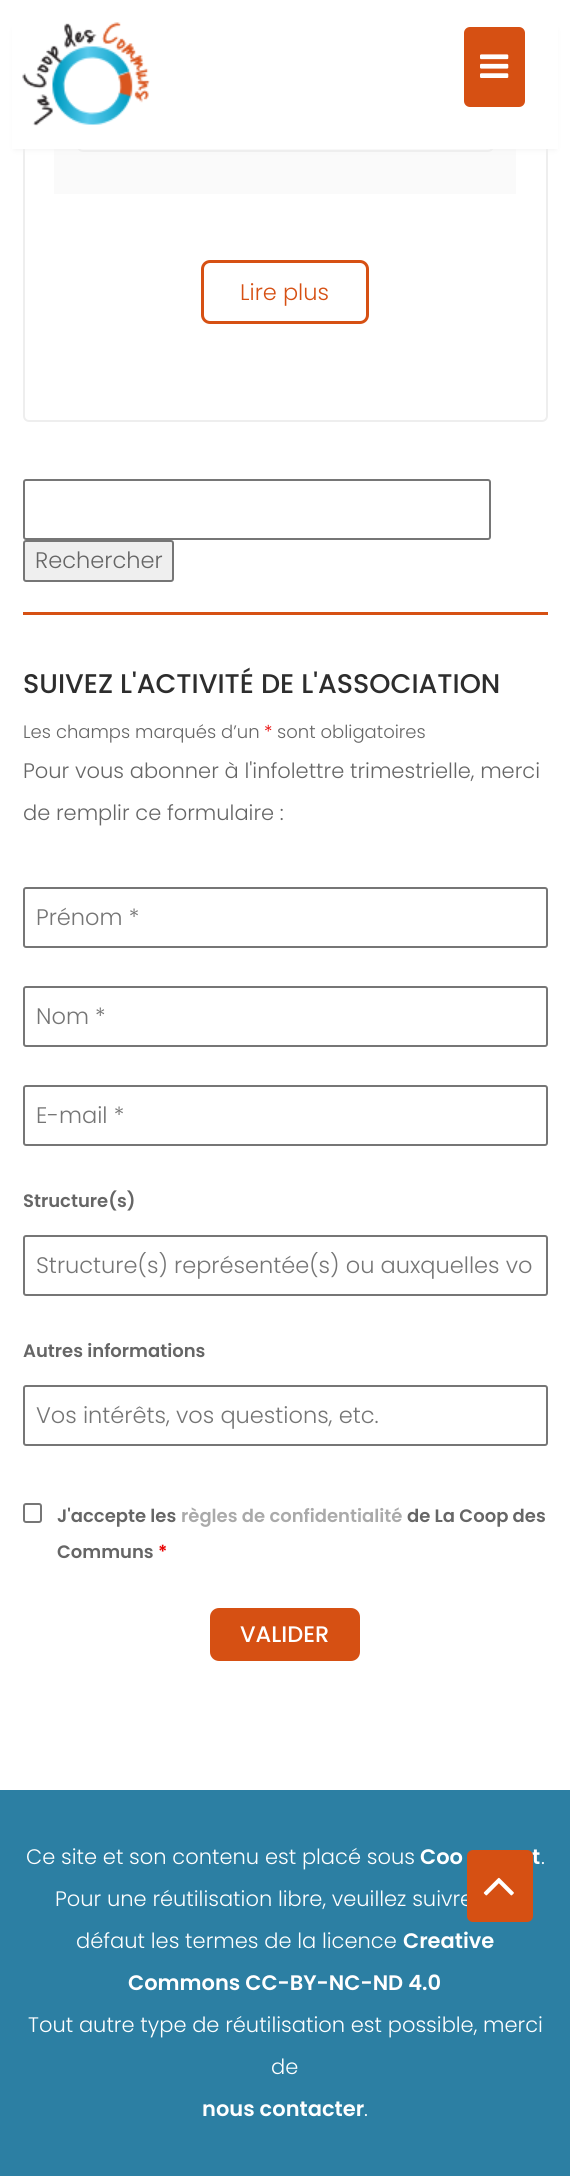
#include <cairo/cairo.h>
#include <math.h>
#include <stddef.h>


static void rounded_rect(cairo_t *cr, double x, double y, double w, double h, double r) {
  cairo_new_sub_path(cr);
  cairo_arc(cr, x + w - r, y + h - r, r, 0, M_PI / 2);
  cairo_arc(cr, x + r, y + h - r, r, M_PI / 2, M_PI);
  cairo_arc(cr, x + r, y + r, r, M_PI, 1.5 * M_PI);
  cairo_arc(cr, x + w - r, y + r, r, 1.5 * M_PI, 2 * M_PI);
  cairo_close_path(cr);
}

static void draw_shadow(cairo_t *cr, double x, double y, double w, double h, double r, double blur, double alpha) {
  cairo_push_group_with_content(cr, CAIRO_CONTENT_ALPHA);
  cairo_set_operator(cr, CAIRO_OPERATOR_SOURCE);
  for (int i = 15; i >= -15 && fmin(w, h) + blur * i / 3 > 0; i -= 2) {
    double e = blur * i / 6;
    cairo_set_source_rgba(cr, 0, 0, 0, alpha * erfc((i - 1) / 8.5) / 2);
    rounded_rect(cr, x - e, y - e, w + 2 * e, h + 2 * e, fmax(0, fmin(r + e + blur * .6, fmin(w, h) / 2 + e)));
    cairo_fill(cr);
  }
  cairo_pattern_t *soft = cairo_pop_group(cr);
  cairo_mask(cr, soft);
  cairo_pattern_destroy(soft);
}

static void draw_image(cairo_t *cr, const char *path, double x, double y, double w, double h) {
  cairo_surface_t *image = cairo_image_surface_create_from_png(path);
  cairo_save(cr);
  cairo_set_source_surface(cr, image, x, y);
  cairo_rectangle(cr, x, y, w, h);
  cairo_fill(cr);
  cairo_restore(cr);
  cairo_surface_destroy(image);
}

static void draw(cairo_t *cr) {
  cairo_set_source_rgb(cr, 1, 1, 1);
  cairo_paint(cr);
  rounded_rect(cr, 24, -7, 523, 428, 5);
  cairo_set_source_rgb(cr, 238 / 255.0, 238 / 255.0, 238 / 255.0);
  cairo_stroke(cr);
  cairo_set_source_rgb(cr, 250 / 255.0, 250 / 255.0, 250 / 255.0);
  cairo_rectangle(cr, 54, 149, 462, 45);
  cairo_fill(cr);
  cairo_set_source_rgb(cr, 1, 1, 1);
  rounded_rect(cr, 78, -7, 415, 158, 5);
  cairo_fill_preserve(cr);
  cairo_set_source_rgb(cr, 238 / 255.0, 238 / 255.0, 238 / 255.0);
  cairo_stroke(cr);
  cairo_set_source_rgb(cr, 238 / 255.0, 238 / 255.0, 238 / 255.0);
  draw_shadow(cr, 15, 30, 540, 119, 0, 3, 0.9);
  cairo_set_source_rgb(cr, 1, 1, 1);
  cairo_rectangle(cr, 12, 0, 546, 149);
  cairo_fill(cr);
  draw_image(cr, "images/1.png", 22, 22, 128, 104);
  cairo_set_source_rgb(cr, 214 / 255.0, 80 / 255.0, 19 / 255.0);
  rounded_rect(cr, 464, 27, 61, 80, 6);
  cairo_fill(cr);
  draw_image(cr, "images/2.png", 480, 54, 29, 24);
  rounded_rect(cr, 202.5, 261.5, 165, 61, 7.5);
  cairo_set_line_width(cr, 3);
  cairo_stroke(cr);
  rounded_rect(cr, 24, 480, 466, 59, 2);
  cairo_set_source_rgb(cr, 118 / 255.0, 118 / 255.0, 118 / 255.0);
  cairo_set_line_width(cr, 2);
  cairo_stroke(cr);
  cairo_set_source_rgb(cr, 239 / 255.0, 239 / 255.0, 239 / 255.0);
  rounded_rect(cr, 24, 541, 149, 40, 2);
  cairo_fill_preserve(cr);
  cairo_set_source_rgb(cr, 118 / 255.0, 118 / 255.0, 118 / 255.0);
  cairo_stroke(cr);
  cairo_set_source_rgb(cr, 214 / 255.0, 80 / 255.0, 19 / 255.0);
  cairo_rectangle(cr, 23, 612, 525, 3);
  cairo_fill(cr);
  rounded_rect(cr, 24, 888, 523, 59, 2);
  cairo_set_source_rgb(cr, 118 / 255.0, 118 / 255.0, 118 / 255.0);
  cairo_stroke(cr);
  rounded_rect(cr, 24, 987, 523, 59, 2);
  cairo_stroke(cr);
  rounded_rect(cr, 24, 1086, 523, 59, 2);
  cairo_stroke(cr);
  rounded_rect(cr, 24, 1236, 523, 59, 2);
  cairo_stroke(cr);
  rounded_rect(cr, 24, 1386, 523, 59, 2);
  cairo_stroke(cr);
  rounded_rect(cr, 24, 1504, 17, 18, 2);
  cairo_stroke(cr);
  cairo_set_source_rgb(cr, 214 / 255.0, 80 / 255.0, 19 / 255.0);
  rounded_rect(cr, 210, 1608, 150, 53, 9);
  cairo_fill(cr);
  cairo_set_source_rgb(cr, 44 / 255.0, 127 / 255.0, 163 / 255.0);
  cairo_rectangle(cr, 0, 1790, 570, 386);
  cairo_fill(cr);
  cairo_select_font_face(cr, "Poppins Light", CAIRO_FONT_SLANT_NORMAL, CAIRO_FONT_WEIGHT_NORMAL);
  cairo_set_font_size(cr, 22.5);
  cairo_set_source_rgb(cr, 214 / 255.0, 80 / 255.0, 19 / 255.0);
  cairo_move_to(cr, 240, 300);
  cairo_show_text(cr, "Lire plus");
  cairo_set_source_rgb(cr, 102 / 255.0, 102 / 255.0, 102 / 255.0);
  cairo_move_to(cr, 35, 568);
  cairo_show_text(cr, "Rechercher");
  cairo_select_font_face(cr, "Poppins Medium", CAIRO_FONT_SLANT_NORMAL, CAIRO_FONT_WEIGHT_NORMAL);
  cairo_set_font_size(cr, 27);
  cairo_set_source_rgb(cr, 45 / 255.0, 45 / 255.0, 45 / 255.0);
  cairo_move_to(cr, 23, 693);
  cairo_show_text(cr, "SUIVEZ L'ACTIVITÉ DE L'ASSOCIATION");
  cairo_select_font_face(cr, "Poppins Light", CAIRO_FONT_SLANT_NORMAL, CAIRO_FONT_WEIGHT_NORMAL);
  cairo_set_font_size(cr, 18);
  cairo_set_source_rgb(cr, 102 / 255.0, 102 / 255.0, 102 / 255.0);
  cairo_move_to(cr, 23, 738);
  cairo_show_text(cr, "Les champs marqués d’un");
  cairo_set_source_rgb(cr, 232 / 255.0, 0, 0);
  cairo_move_to(cr, 264, 738);
  cairo_show_text(cr, "*");
  cairo_set_source_rgb(cr, 102 / 255.0, 102 / 255.0, 102 / 255.0);
  cairo_move_to(cr, 277, 738);
  cairo_show_text(cr, "sont obligatoires");
  cairo_set_font_size(cr, 21);
  cairo_move_to(cr, 23, 778);
  cairo_show_text(cr, "Pour vous abonner à l'infolettre trimestrielle, merci");
  cairo_move_to(cr, 23, 820);
  cairo_show_text(cr, "de remplir ce formulaire :");
  cairo_set_font_size(cr, 22.5);
  cairo_set_source_rgb(cr, 117 / 255.0, 117 / 255.0, 117 / 255.0);
  cairo_move_to(cr, 36, 925);
  cairo_show_text(cr, "Prénom *");
  cairo_move_to(cr, 36, 1024);
  cairo_show_text(cr, "Nom *");
  cairo_move_to(cr, 36, 1123);
  cairo_show_text(cr, "E-mail *");
  cairo_select_font_face(cr, "Poppins SemiBold", CAIRO_FONT_SLANT_NORMAL, CAIRO_FONT_WEIGHT_NORMAL);
  cairo_set_font_size(cr, 18);
  cairo_set_source_rgb(cr, 102 / 255.0, 102 / 255.0, 102 / 255.0);
  cairo_move_to(cr, 23, 1207);
  cairo_show_text(cr, "Structure(s)");
  cairo_select_font_face(cr, "Poppins Light", CAIRO_FONT_SLANT_NORMAL, CAIRO_FONT_WEIGHT_NORMAL);
  cairo_set_font_size(cr, 22.5);
  cairo_set_source_rgb(cr, 117 / 255.0, 117 / 255.0, 117 / 255.0);
  cairo_move_to(cr, 36, 1273);
  cairo_show_text(cr, "Structure(s) représentée(s) ou auxquelles vo");
  cairo_select_font_face(cr, "Poppins SemiBold", CAIRO_FONT_SLANT_NORMAL, CAIRO_FONT_WEIGHT_NORMAL);
  cairo_set_font_size(cr, 18);
  cairo_set_source_rgb(cr, 102 / 255.0, 102 / 255.0, 102 / 255.0);
  cairo_move_to(cr, 23, 1357);
  cairo_show_text(cr, "Autres informations");
  cairo_select_font_face(cr, "Poppins Light", CAIRO_FONT_SLANT_NORMAL, CAIRO_FONT_WEIGHT_NORMAL);
  cairo_set_font_size(cr, 22.5);
  cairo_set_source_rgb(cr, 117 / 255.0, 117 / 255.0, 117 / 255.0);
  cairo_move_to(cr, 36, 1423);
  cairo_show_text(cr, "Vos intérêts, vos questions, etc.");
  cairo_select_font_face(cr, "Poppins SemiBold", CAIRO_FONT_SLANT_NORMAL, CAIRO_FONT_WEIGHT_NORMAL);
  cairo_set_font_size(cr, 18);
  cairo_set_source_rgb(cr, 102 / 255.0, 102 / 255.0, 102 / 255.0);
  cairo_move_to(cr, 57, 1522);
  cairo_show_text(cr, "J'accepte les");
  cairo_set_source_rgb(cr, 170 / 255.0, 170 / 255.0, 170 / 255.0);
  cairo_move_to(cr, 181, 1522);
  cairo_show_text(cr, "règles de confidentialité");
  cairo_set_source_rgb(cr, 102 / 255.0, 102 / 255.0, 102 / 255.0);
  cairo_move_to(cr, 407, 1522);
  cairo_show_text(cr, "de La Coop des");
  cairo_move_to(cr, 57, 1558);
  cairo_show_text(cr, "Communs");
  cairo_set_source_rgb(cr, 232 / 255.0, 0, 0);
  cairo_move_to(cr, 158, 1558);
  cairo_show_text(cr, "*");
  cairo_select_font_face(cr, "Poppins Medium", CAIRO_FONT_SLANT_NORMAL, CAIRO_FONT_WEIGHT_NORMAL);
  cairo_set_font_size(cr, 22.5);
  cairo_set_source_rgb(cr, 1, 1, 1);
  cairo_move_to(cr, 240, 1642);
  cairo_show_text(cr, "VALIDER");
  cairo_select_font_face(cr, "Poppins Light", CAIRO_FONT_SLANT_NORMAL, CAIRO_FONT_WEIGHT_NORMAL);
  cairo_set_font_size(cr, 21);
  cairo_move_to(cr, 26, 1864);
  cairo_show_text(cr, "Ce site et son contenu est placé sous");
  cairo_select_font_face(cr, "Poppins SemiBold", CAIRO_FONT_SLANT_NORMAL, CAIRO_FONT_WEIGHT_NORMAL);
  cairo_move_to(cr, 420, 1864);
  cairo_show_text(cr, "Coo");
  cairo_move_to(cr, 532, 1864);
  cairo_show_text(cr, "t");
  cairo_select_font_face(cr, "Poppins Light", CAIRO_FONT_SLANT_NORMAL, CAIRO_FONT_WEIGHT_NORMAL);
  cairo_move_to(cr, 541, 1864);
  cairo_show_text(cr, ".");
  cairo_move_to(cr, 55, 1906);
  cairo_show_text(cr, "Pour une réutilisation libre, veuillez suivre");
  cairo_move_to(cr, 76, 1948);
  cairo_show_text(cr, "défaut les termes de la licence");
  cairo_select_font_face(cr, "Poppins SemiBold", CAIRO_FONT_SLANT_NORMAL, CAIRO_FONT_WEIGHT_NORMAL);
  cairo_move_to(cr, 403, 1948);
  cairo_show_text(cr, "Creative");
  cairo_move_to(cr, 128, 1990);
  cairo_show_text(cr, "Commons CC-BY-NC-ND 4.0");
  cairo_select_font_face(cr, "Poppins Light", CAIRO_FONT_SLANT_NORMAL, CAIRO_FONT_WEIGHT_NORMAL);
  cairo_move_to(cr, 28, 2032);
  cairo_show_text(cr, "Tout autre type de réutilisation est possible, merci");
  cairo_move_to(cr, 271, 2074);
  cairo_show_text(cr, "de");
  cairo_select_font_face(cr, "Poppins SemiBold", CAIRO_FONT_SLANT_NORMAL, CAIRO_FONT_WEIGHT_NORMAL);
  cairo_move_to(cr, 202, 2116);
  cairo_show_text(cr, "nous contacter");
  cairo_select_font_face(cr, "Poppins Light", CAIRO_FONT_SLANT_NORMAL, CAIRO_FONT_WEIGHT_NORMAL);
  cairo_move_to(cr, 364, 2116);
  cairo_show_text(cr, ".");
  cairo_set_source_rgb(cr, 214 / 255.0, 80 / 255.0, 19 / 255.0);
  rounded_rect(cr, 467, 1850, 66, 72, 6);
  cairo_fill(cr);
  draw_image(cr, "images/3.png", 483, 1877, 31, 19);
}

int main(void) {
  cairo_surface_t *surface = cairo_image_surface_create(CAIRO_FORMAT_RGB24, 570, 2176);
  cairo_t *cr = cairo_create(surface);
  cairo_font_options_t *options = cairo_font_options_create();
  cairo_font_options_set_hint_metrics(options, CAIRO_HINT_METRICS_OFF);
  cairo_font_options_set_hint_style(options, CAIRO_HINT_STYLE_NONE);
  cairo_set_font_options(cr, options);
  cairo_set_miter_limit(cr, 4);
  draw(cr);
  cairo_surface_write_to_png(surface, "out.png");
  cairo_font_options_destroy(options);
  cairo_destroy(cr);
  cairo_surface_destroy(surface);
  return 0;
}
